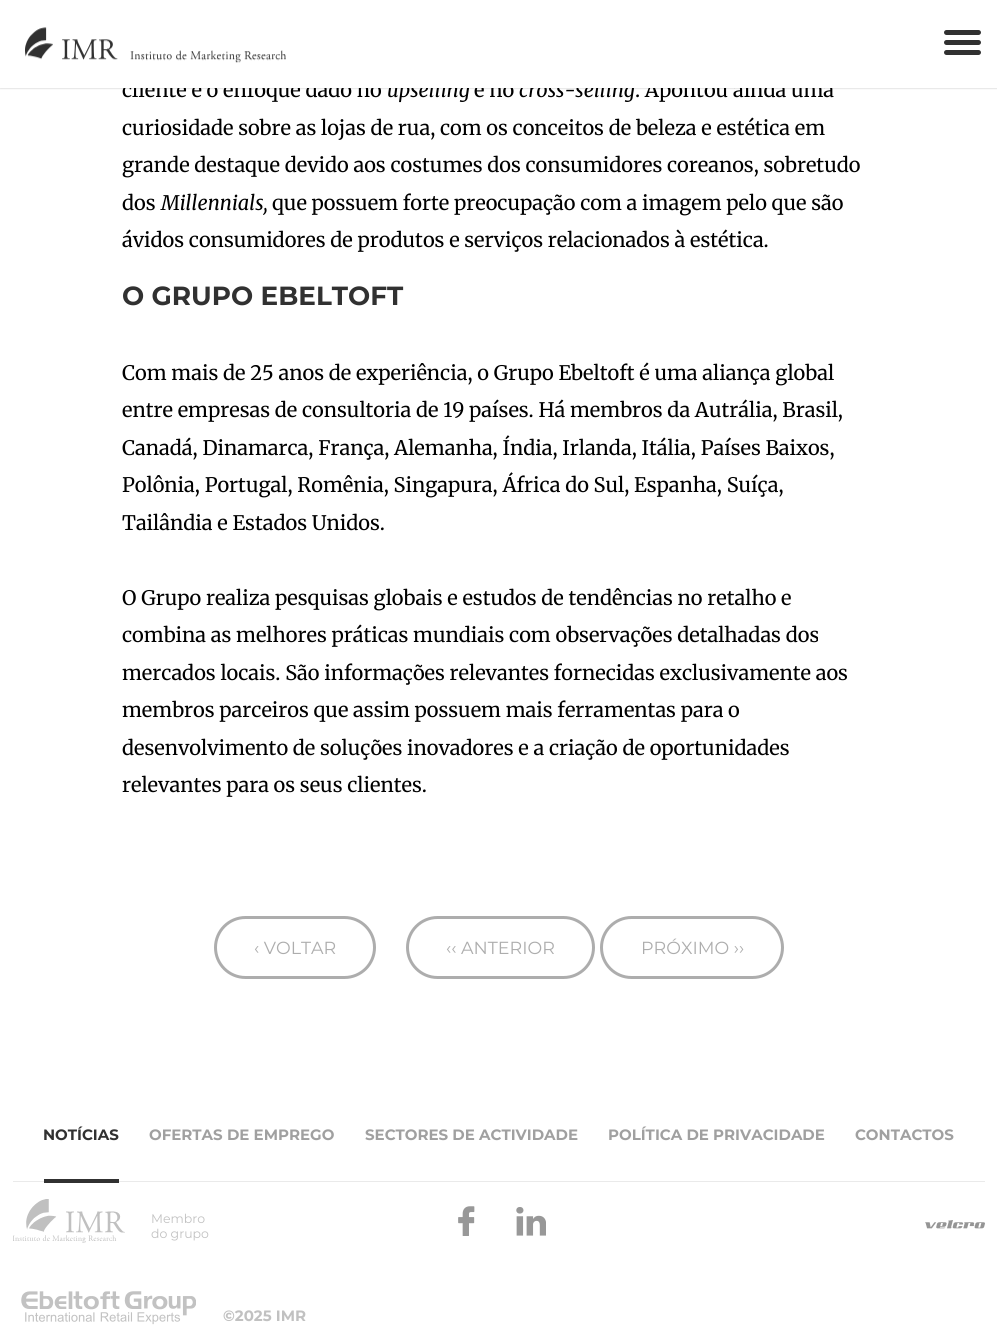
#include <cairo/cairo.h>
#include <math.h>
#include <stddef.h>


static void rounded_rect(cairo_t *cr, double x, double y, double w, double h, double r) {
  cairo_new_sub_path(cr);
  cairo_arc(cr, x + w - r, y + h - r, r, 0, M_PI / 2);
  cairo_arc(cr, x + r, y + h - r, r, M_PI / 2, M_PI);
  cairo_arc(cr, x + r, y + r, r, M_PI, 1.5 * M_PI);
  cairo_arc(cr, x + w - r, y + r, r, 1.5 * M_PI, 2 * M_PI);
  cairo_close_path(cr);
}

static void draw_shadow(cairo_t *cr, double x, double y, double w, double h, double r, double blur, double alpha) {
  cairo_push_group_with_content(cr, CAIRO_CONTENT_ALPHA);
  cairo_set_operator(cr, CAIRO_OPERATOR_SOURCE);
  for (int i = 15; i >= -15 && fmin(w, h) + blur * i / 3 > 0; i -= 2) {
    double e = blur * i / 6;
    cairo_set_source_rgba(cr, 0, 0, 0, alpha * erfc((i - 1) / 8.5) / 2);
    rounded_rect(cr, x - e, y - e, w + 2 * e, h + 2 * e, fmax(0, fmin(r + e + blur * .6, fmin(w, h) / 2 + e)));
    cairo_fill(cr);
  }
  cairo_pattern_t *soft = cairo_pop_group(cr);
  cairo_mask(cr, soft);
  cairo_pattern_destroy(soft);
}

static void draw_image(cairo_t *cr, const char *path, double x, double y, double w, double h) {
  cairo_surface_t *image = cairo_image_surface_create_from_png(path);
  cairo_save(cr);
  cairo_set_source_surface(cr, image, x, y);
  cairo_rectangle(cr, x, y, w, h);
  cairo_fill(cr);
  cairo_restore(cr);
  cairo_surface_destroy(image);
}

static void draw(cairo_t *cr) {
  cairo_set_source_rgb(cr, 1, 1, 1);
  cairo_paint(cr);
  cairo_set_source_rgb(cr, 0, 0, 0);
  draw_shadow(cr, 0, 1, 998, 88, 0, 0.5, 0.1);
  rounded_rect(cr, 215.5, 917.5, 159, 60, 30);
  cairo_set_source_rgb(cr, 173 / 255.0, 173 / 255.0, 173 / 255.0);
  cairo_set_line_width(cr, 3);
  cairo_stroke(cr);
  rounded_rect(cr, 407.5, 917.5, 186, 60, 30);
  cairo_stroke(cr);
  rounded_rect(cr, 601.5, 917.5, 181, 60, 30);
  cairo_stroke(cr);
  cairo_set_source_rgb(cr, 234 / 255.0, 234 / 255.0, 234 / 255.0);
  cairo_rectangle(cr, 13, 1181, 972, 1);
  cairo_fill(cr);
  cairo_set_source_rgb(cr, 49 / 255.0, 49 / 255.0, 49 / 255.0);
  cairo_rectangle(cr, 44, 1179, 75, 4);
  cairo_fill(cr);
  draw_image(cr, "images/2.png", 13, 1199, 112, 44);
  draw_image(cr, "images/3.png", 21, 1291, 175, 34);
  draw_image(cr, "images/4.png", 458, 1206, 17, 30);
  draw_image(cr, "images/5.png", 516, 1207, 30, 29);
  draw_image(cr, "images/6.png", 925, 1220, 60, 9);
  cairo_select_font_face(cr, "Merriweather", CAIRO_FONT_SLANT_NORMAL, CAIRO_FONT_WEIGHT_NORMAL);
  cairo_set_font_size(cr, 20);
  cairo_set_source_rgb(cr, 0, 0, 0);
  cairo_move_to(cr, 122, 97);
  cairo_show_text(cr, "cliente e o enfoque dado no");
  cairo_select_font_face(cr, "Merriweather", CAIRO_FONT_SLANT_ITALIC, CAIRO_FONT_WEIGHT_NORMAL);
  cairo_move_to(cr, 387, 97);
  cairo_show_text(cr, "upselling");
  cairo_select_font_face(cr, "Merriweather", CAIRO_FONT_SLANT_NORMAL, CAIRO_FONT_WEIGHT_NORMAL);
  cairo_move_to(cr, 474, 97);
  cairo_show_text(cr, "e no");
  cairo_select_font_face(cr, "Merriweather", CAIRO_FONT_SLANT_ITALIC, CAIRO_FONT_WEIGHT_NORMAL);
  cairo_move_to(cr, 519, 97);
  cairo_show_text(cr, "cross-selling");
  cairo_select_font_face(cr, "Merriweather", CAIRO_FONT_SLANT_NORMAL, CAIRO_FONT_WEIGHT_NORMAL);
  cairo_move_to(cr, 635, 97);
  cairo_show_text(cr, ". Apontou ainda uma");
  cairo_set_source_rgb(cr, 1, 1, 1);
  cairo_rectangle(cr, 0, 0, 997, 88);
  cairo_fill(cr);
  cairo_set_source_rgb(cr, 49 / 255.0, 49 / 255.0, 49 / 255.0);
  rounded_rect(cr, 944, 50, 37, 5, 2.5);
  cairo_fill(cr);
  rounded_rect(cr, 944, 40, 37, 5, 2.5);
  cairo_fill(cr);
  rounded_rect(cr, 944, 30, 37, 5, 2.5);
  cairo_fill(cr);
  draw_image(cr, "images/1.png", 25, 27, 261, 36);
  cairo_set_source_rgb(cr, 0, 0, 0);
  cairo_move_to(cr, 122, 135);
  cairo_show_text(cr, "curiosidade sobre as lojas de rua, com os conceitos de beleza e estética em");
  cairo_move_to(cr, 122, 172);
  cairo_show_text(cr, "grande destaque devido aos costumes dos consumidores coreanos, sobretudo");
  cairo_move_to(cr, 122, 210);
  cairo_show_text(cr, "dos");
  cairo_select_font_face(cr, "Merriweather", CAIRO_FONT_SLANT_ITALIC, CAIRO_FONT_WEIGHT_NORMAL);
  cairo_move_to(cr, 161, 210);
  cairo_show_text(cr, "Millennials,");
  cairo_select_font_face(cr, "Merriweather", CAIRO_FONT_SLANT_NORMAL, CAIRO_FONT_WEIGHT_NORMAL);
  cairo_move_to(cr, 272, 210);
  cairo_show_text(cr, "que possuem forte preocupação com a imagem pelo que são");
  cairo_move_to(cr, 122, 247);
  cairo_show_text(cr, "ávidos consumidores de produtos e serviços relacionados à estética.");
  cairo_select_font_face(cr, "Montserrat", CAIRO_FONT_SLANT_NORMAL, CAIRO_FONT_WEIGHT_BOLD);
  cairo_set_font_size(cr, 26.25);
  cairo_set_source_rgb(cr, 49 / 255.0, 49 / 255.0, 49 / 255.0);
  cairo_move_to(cr, 122, 305);
  cairo_show_text(cr, "O GRUPO EBELTOFT");
  cairo_select_font_face(cr, "Merriweather", CAIRO_FONT_SLANT_NORMAL, CAIRO_FONT_WEIGHT_NORMAL);
  cairo_set_font_size(cr, 20);
  cairo_set_source_rgb(cr, 0, 0, 0);
  cairo_move_to(cr, 122, 380);
  cairo_show_text(cr, "Com mais de 25 anos de experiência, o Grupo Ebeltoft é uma aliança global");
  cairo_move_to(cr, 122, 417);
  cairo_show_text(cr, "entre empresas de consultoria de 19 países. Há membros da Autrália, Brasil,");
  cairo_move_to(cr, 122, 455);
  cairo_show_text(cr, "Canadá, Dinamarca, França, Alemanha, Índia, Irlanda, Itália, Países Baixos,");
  cairo_move_to(cr, 122, 492);
  cairo_show_text(cr, "Polônia, Portugal, Romênia, Singapura, África do Sul, Espanha, Suíça,");
  cairo_move_to(cr, 122, 530);
  cairo_show_text(cr, "Tailândia e Estados Unidos.");
  cairo_move_to(cr, 122, 605);
  cairo_show_text(cr, "O Grupo realiza pesquisas globais e estudos de tendências no retalho e");
  cairo_move_to(cr, 122, 642);
  cairo_show_text(cr, "combina as melhores práticas mundiais com observações detalhadas dos");
  cairo_move_to(cr, 122, 680);
  cairo_show_text(cr, "mercados locais. São informações relevantes fornecidas exclusivamente aos");
  cairo_move_to(cr, 122, 717);
  cairo_show_text(cr, "membros parceiros que assim possuem mais ferramentas para o");
  cairo_move_to(cr, 122, 755);
  cairo_show_text(cr, "desenvolvimento de soluções inovadores e a criação de oportunidades");
  cairo_move_to(cr, 122, 792);
  cairo_show_text(cr, "relevantes para os seus clientes.");
  cairo_select_font_face(cr, "Montserrat", CAIRO_FONT_SLANT_NORMAL, CAIRO_FONT_WEIGHT_NORMAL);
  cairo_set_font_size(cr, 17.5);
  cairo_set_source_rgb(cr, 173 / 255.0, 173 / 255.0, 173 / 255.0);
  cairo_move_to(cr, 254, 954);
  cairo_show_text(cr, "‹ VOLTAR");
  cairo_move_to(cr, 446, 954);
  cairo_show_text(cr, "‹‹ ANTERIOR");
  cairo_move_to(cr, 641, 954);
  cairo_show_text(cr, "PRÓXIMO ››");
  cairo_select_font_face(cr, "Montserrat", CAIRO_FONT_SLANT_NORMAL, CAIRO_FONT_WEIGHT_BOLD);
  cairo_set_font_size(cr, 15);
  cairo_set_source_rgb(cr, 49 / 255.0, 49 / 255.0, 49 / 255.0);
  cairo_move_to(cr, 43, 1140);
  cairo_show_text(cr, "NOTÍCIAS");
  cairo_set_source_rgb(cr, 160 / 255.0, 160 / 255.0, 160 / 255.0);
  cairo_move_to(cr, 149, 1140);
  cairo_show_text(cr, "OFERTAS DE EMPREGO");
  cairo_move_to(cr, 365, 1140);
  cairo_show_text(cr, "SECTORES DE ACTIVIDADE");
  cairo_move_to(cr, 608, 1140);
  cairo_show_text(cr, "POLÍTICA DE PRIVACIDADE");
  cairo_move_to(cr, 855, 1140);
  cairo_show_text(cr, "CONTACTOS");
  cairo_select_font_face(cr, "Montserrat", CAIRO_FONT_SLANT_NORMAL, CAIRO_FONT_WEIGHT_NORMAL);
  cairo_set_font_size(cr, 12.5);
  cairo_set_source_rgb(cr, 193 / 255.0, 193 / 255.0, 193 / 255.0);
  cairo_move_to(cr, 151, 1223);
  cairo_show_text(cr, "Membro");
  cairo_move_to(cr, 151, 1238);
  cairo_show_text(cr, "do grupo");
  cairo_select_font_face(cr, "Montserrat", CAIRO_FONT_SLANT_NORMAL, CAIRO_FONT_WEIGHT_BOLD);
  cairo_set_font_size(cr, 15);
  cairo_move_to(cr, 223, 1321);
  cairo_show_text(cr, "©2025 IMR");
}

int main(void) {
  cairo_surface_t *surface = cairo_image_surface_create(CAIRO_FORMAT_RGB24, 997, 1344);
  cairo_t *cr = cairo_create(surface);
  cairo_font_options_t *options = cairo_font_options_create();
  cairo_font_options_set_hint_metrics(options, CAIRO_HINT_METRICS_OFF);
  cairo_font_options_set_hint_style(options, CAIRO_HINT_STYLE_NONE);
  cairo_set_font_options(cr, options);
  cairo_set_miter_limit(cr, 4);
  draw(cr);
  cairo_surface_write_to_png(surface, "out.png");
  cairo_font_options_destroy(options);
  cairo_destroy(cr);
  cairo_surface_destroy(surface);
  return 0;
}
